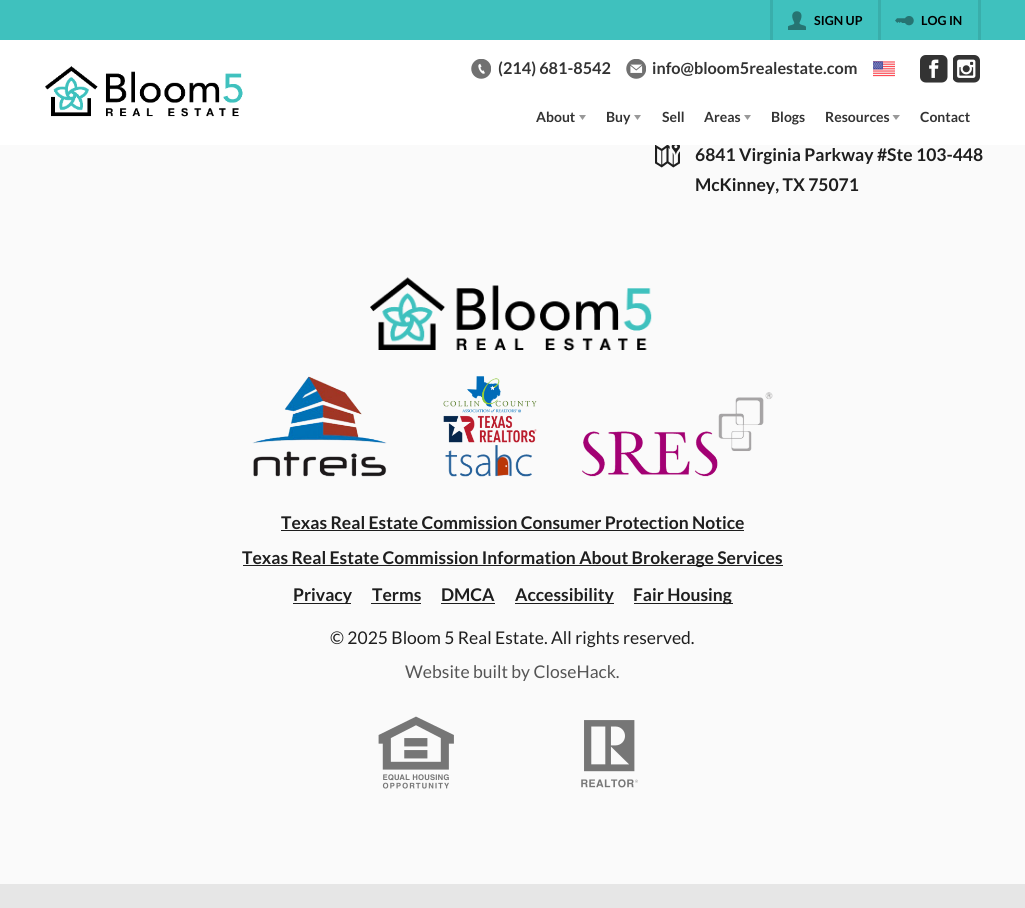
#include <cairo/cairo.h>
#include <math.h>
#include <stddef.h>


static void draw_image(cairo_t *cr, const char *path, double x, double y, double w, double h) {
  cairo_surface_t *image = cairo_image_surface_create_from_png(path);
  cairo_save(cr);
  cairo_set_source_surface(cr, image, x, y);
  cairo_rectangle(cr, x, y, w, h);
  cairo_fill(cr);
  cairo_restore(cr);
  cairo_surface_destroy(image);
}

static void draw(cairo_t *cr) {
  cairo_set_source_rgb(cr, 250 / 255.0, 250 / 255.0, 250 / 255.0);
  cairo_paint(cr);
  cairo_set_source_rgb(cr, 63 / 255.0, 193 / 255.0, 190 / 255.0);
  cairo_rectangle(cr, 0, 0, 1025, 40);
  cairo_fill(cr);
  cairo_set_source_rgb(cr, 57 / 255.0, 174 / 255.0, 171 / 255.0);
  cairo_rectangle(cr, 978, 0, 3, 40);
  cairo_fill(cr);
  cairo_rectangle(cr, 770, 0, 3, 40);
  cairo_fill(cr);
  draw_image(cr, "images/1.png", 788, 11, 18, 19);
  cairo_rectangle(cr, 878, 0, 3, 40);
  cairo_fill(cr);
  draw_image(cr, "images/2.png", 895, 16, 19, 10);
  cairo_set_source_rgb(cr, 1, 1, 1);
  cairo_rectangle(cr, 0, 40, 1025, 105);
  cairo_fill(cr);
  draw_image(cr, "images/3.png", 45, 66, 198, 51);
  draw_image(cr, "images/4.png", 471, 59, 20, 20);
  draw_image(cr, "images/5.png", 626, 59, 20, 20);
  draw_image(cr, "images/6.png", 873, 61, 22, 16);
  draw_image(cr, "images/7.png", 920, 55, 28, 28);
  draw_image(cr, "images/8.png", 953, 55, 27, 28);
  cairo_set_source_rgb(cr, 153 / 255.0, 153 / 255.0, 153 / 255.0);
  cairo_new_path(cr);
  cairo_move_to(cr, 579, 115);
  cairo_line_to(cr, 586, 115);
  cairo_line_to(cr, 582.5, 120);
  cairo_close_path(cr);
  cairo_fill(cr);
  cairo_new_path(cr);
  cairo_move_to(cr, 634, 115);
  cairo_line_to(cr, 641, 115);
  cairo_line_to(cr, 637.5, 120);
  cairo_close_path(cr);
  cairo_fill(cr);
  cairo_new_path(cr);
  cairo_move_to(cr, 744, 115);
  cairo_line_to(cr, 751, 115);
  cairo_line_to(cr, 747.5, 120);
  cairo_close_path(cr);
  cairo_fill(cr);
  cairo_new_path(cr);
  cairo_move_to(cr, 892.5, 115);
  cairo_line_to(cr, 900, 115);
  cairo_line_to(cr, 896, 120);
  cairo_close_path(cr);
  cairo_fill(cr);
  draw_image(cr, "images/9.png", 655, 145, 25, 23);
  draw_image(cr, "images/10.png", 370, 277, 282, 74);
  draw_image(cr, "images/11.png", 252, 376, 521, 101);
  cairo_set_source_rgb(cr, 30 / 255.0, 30 / 255.0, 30 / 255.0);
  cairo_rectangle(cr, 281, 530, 463, 1);
  cairo_fill(cr);
  cairo_rectangle(cr, 243, 565, 540, 1);
  cairo_fill(cr);
  cairo_rectangle(cr, 293, 603, 58, 1);
  cairo_fill(cr);
  cairo_rectangle(cr, 371, 603, 50, 1);
  cairo_fill(cr);
  cairo_rectangle(cr, 441, 603, 54, 1);
  cairo_fill(cr);
  cairo_rectangle(cr, 515, 603, 99, 1);
  cairo_fill(cr);
  cairo_rectangle(cr, 634, 603, 99, 1);
  cairo_fill(cr);
  draw_image(cr, "images/12.png", 378, 716, 76, 73);
  draw_image(cr, "images/13.png", 581, 720, 57, 68);
  cairo_set_source_rgb(cr, 230 / 255.0, 230 / 255.0, 230 / 255.0);
  cairo_rectangle(cr, 0, 884, 1025, 24);
  cairo_fill(cr);
  cairo_select_font_face(cr, "Lato", CAIRO_FONT_SLANT_NORMAL, CAIRO_FONT_WEIGHT_BOLD);
  cairo_set_font_size(cr, 12.5);
  cairo_set_source_rgb(cr, 0, 0, 0);
  cairo_move_to(cr, 814, 25);
  cairo_show_text(cr, "SIGN UP");
  cairo_move_to(cr, 921, 25);
  cairo_show_text(cr, "LOG IN");
  cairo_set_font_size(cr, 16.25);
  cairo_set_source_rgb(cr, 51 / 255.0, 51 / 255.0, 51 / 255.0);
  cairo_move_to(cr, 498, 74);
  cairo_show_text(cr, "(214) 681-8542");
  cairo_move_to(cr, 652, 74);
  cairo_show_text(cr, "info@bloom5realestate.com");
  cairo_set_font_size(cr, 14);
  cairo_move_to(cr, 536, 122);
  cairo_show_text(cr, "About");
  cairo_move_to(cr, 606, 122);
  cairo_show_text(cr, "Buy");
  cairo_move_to(cr, 662, 122);
  cairo_show_text(cr, "Sell");
  cairo_move_to(cr, 704, 122);
  cairo_show_text(cr, "Areas");
  cairo_move_to(cr, 771, 122);
  cairo_show_text(cr, "Blogs");
  cairo_move_to(cr, 825, 122);
  cairo_show_text(cr, "Resources");
  cairo_move_to(cr, 920, 122);
  cairo_show_text(cr, "Contact");
  cairo_set_font_size(cr, 17.5);
  cairo_set_source_rgb(cr, 30 / 255.0, 30 / 255.0, 30 / 255.0);
  cairo_move_to(cr, 695, 161);
  cairo_show_text(cr, "6841 Virginia Parkway #Ste 103-448");
  cairo_move_to(cr, 695, 191);
  cairo_show_text(cr, "McKinney, TX 75071");
  cairo_move_to(cr, 281, 529);
  cairo_show_text(cr, "Texas Real Estate Commission Consumer Protection Notice");
  cairo_move_to(cr, 242, 564);
  cairo_show_text(cr, "Texas Real Estate Commission Information About Brokerage Services");
  cairo_move_to(cr, 293, 601);
  cairo_show_text(cr, "Privacy");
  cairo_move_to(cr, 372, 601);
  cairo_show_text(cr, "Terms");
  cairo_move_to(cr, 441, 601);
  cairo_show_text(cr, "DMCA");
  cairo_move_to(cr, 515, 601);
  cairo_show_text(cr, "Accessibility");
  cairo_move_to(cr, 633, 601);
  cairo_show_text(cr, "Fair Housing");
  cairo_select_font_face(cr, "Lato", CAIRO_FONT_SLANT_NORMAL, CAIRO_FONT_WEIGHT_NORMAL);
  cairo_move_to(cr, 330, 644);
  cairo_show_text(cr, "© 2025 Bloom 5 Real Estate. All rights reserved.");
  cairo_set_source_rgb(cr, 85 / 255.0, 85 / 255.0, 85 / 255.0);
  cairo_move_to(cr, 405, 678);
  cairo_show_text(cr, "Website built by CloseHack.");
}

int main(void) {
  cairo_surface_t *surface = cairo_image_surface_create(CAIRO_FORMAT_RGB24, 1025, 908);
  cairo_t *cr = cairo_create(surface);
  cairo_font_options_t *options = cairo_font_options_create();
  cairo_font_options_set_hint_metrics(options, CAIRO_HINT_METRICS_OFF);
  cairo_font_options_set_hint_style(options, CAIRO_HINT_STYLE_NONE);
  cairo_set_font_options(cr, options);
  cairo_set_miter_limit(cr, 4);
  draw(cr);
  cairo_surface_write_to_png(surface, "out.png");
  cairo_font_options_destroy(options);
  cairo_destroy(cr);
  cairo_surface_destroy(surface);
  return 0;
}
